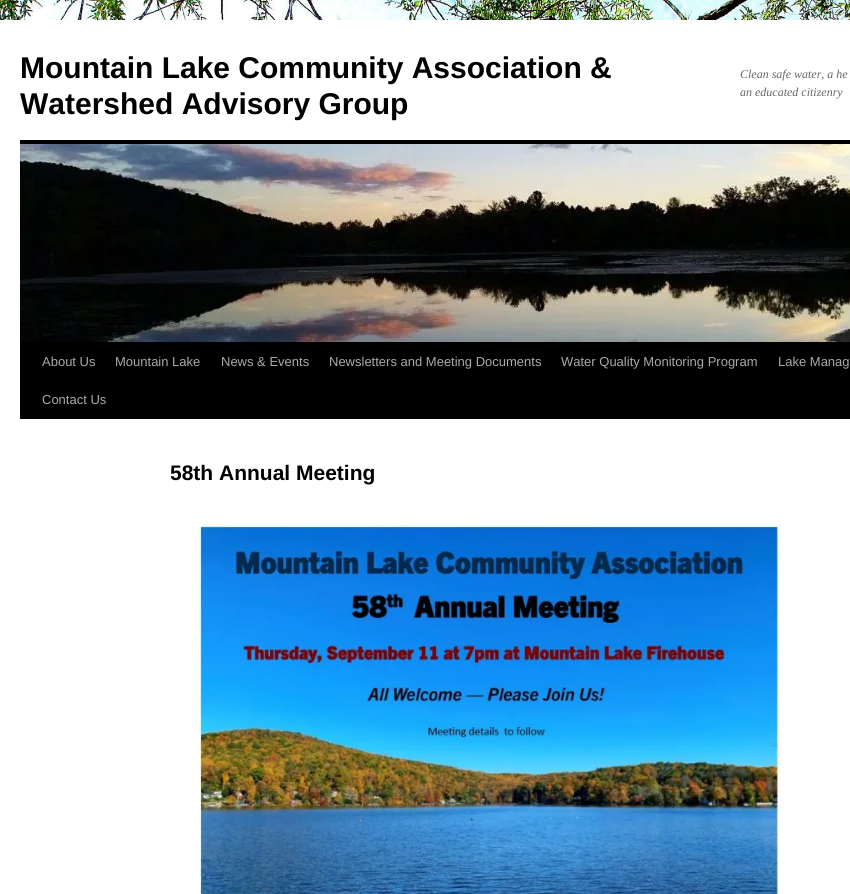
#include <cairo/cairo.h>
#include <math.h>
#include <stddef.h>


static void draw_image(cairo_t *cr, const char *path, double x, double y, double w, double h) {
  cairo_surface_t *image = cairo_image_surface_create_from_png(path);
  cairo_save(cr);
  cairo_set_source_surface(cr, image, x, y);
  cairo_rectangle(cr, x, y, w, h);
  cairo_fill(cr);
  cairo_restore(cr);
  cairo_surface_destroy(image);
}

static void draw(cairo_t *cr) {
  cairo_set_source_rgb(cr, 1, 1, 1);
  cairo_paint(cr);
  draw_image(cr, "images/1.png", 0, 0, 850, 20);
  cairo_set_source_rgb(cr, 0, 0, 0);
  cairo_rectangle(cr, 20, 140, 830, 4);
  cairo_fill(cr);
  cairo_rectangle(cr, 20, 342, 830, 77);
  cairo_fill(cr);
  draw_image(cr, "images/2.png", 20, 144, 830, 198);
  draw_image(cr, "images/3.png", 197, 525, 587, 369);
  cairo_select_font_face(cr, "Liberation Sans", CAIRO_FONT_SLANT_NORMAL, CAIRO_FONT_WEIGHT_BOLD);
  cairo_set_font_size(cr, 30);
  cairo_move_to(cr, 20, 78);
  cairo_show_text(cr, "Mountain Lake Community Association &");
  cairo_move_to(cr, 20, 114);
  cairo_show_text(cr, "Watershed Advisory Group");
  cairo_select_font_face(cr, "Liberation Serif", CAIRO_FONT_SLANT_ITALIC, CAIRO_FONT_WEIGHT_NORMAL);
  cairo_set_font_size(cr, 12);
  cairo_set_source_rgb(cr, 102 / 255.0, 102 / 255.0, 102 / 255.0);
  cairo_move_to(cr, 740, 78);
  cairo_show_text(cr, "Clean safe water, a he");
  cairo_move_to(cr, 740, 96);
  cairo_show_text(cr, "an educated citizenry");
  cairo_select_font_face(cr, "Liberation Sans", CAIRO_FONT_SLANT_NORMAL, CAIRO_FONT_WEIGHT_NORMAL);
  cairo_set_font_size(cr, 13);
  cairo_set_source_rgb(cr, 170 / 255.0, 170 / 255.0, 170 / 255.0);
  cairo_move_to(cr, 42, 366);
  cairo_show_text(cr, "About Us");
  cairo_move_to(cr, 115, 366);
  cairo_show_text(cr, "Mountain Lake");
  cairo_move_to(cr, 221, 366);
  cairo_show_text(cr, "News & Events");
  cairo_move_to(cr, 329, 366);
  cairo_show_text(cr, "Newsletters and Meeting Documents");
  cairo_move_to(cr, 561, 366);
  cairo_show_text(cr, "Water Quality Monitoring Program");
  cairo_move_to(cr, 778, 366);
  cairo_show_text(cr, "Lake Manag");
  cairo_move_to(cr, 42, 404);
  cairo_show_text(cr, "Contact Us");
  cairo_select_font_face(cr, "Liberation Sans", CAIRO_FONT_SLANT_NORMAL, CAIRO_FONT_WEIGHT_BOLD);
  cairo_set_font_size(cr, 21);
  cairo_set_source_rgb(cr, 0, 0, 0);
  cairo_move_to(cr, 170, 480);
  cairo_show_text(cr, "58th Annual Meeting");
}

int main(void) {
  cairo_surface_t *surface = cairo_image_surface_create(CAIRO_FORMAT_RGB24, 850, 894);
  cairo_t *cr = cairo_create(surface);
  cairo_font_options_t *options = cairo_font_options_create();
  cairo_font_options_set_hint_metrics(options, CAIRO_HINT_METRICS_OFF);
  cairo_font_options_set_hint_style(options, CAIRO_HINT_STYLE_NONE);
  cairo_set_font_options(cr, options);
  cairo_set_miter_limit(cr, 4);
  draw(cr);
  cairo_surface_write_to_png(surface, "out.png");
  cairo_font_options_destroy(options);
  cairo_destroy(cr);
  cairo_surface_destroy(surface);
  return 0;
}
